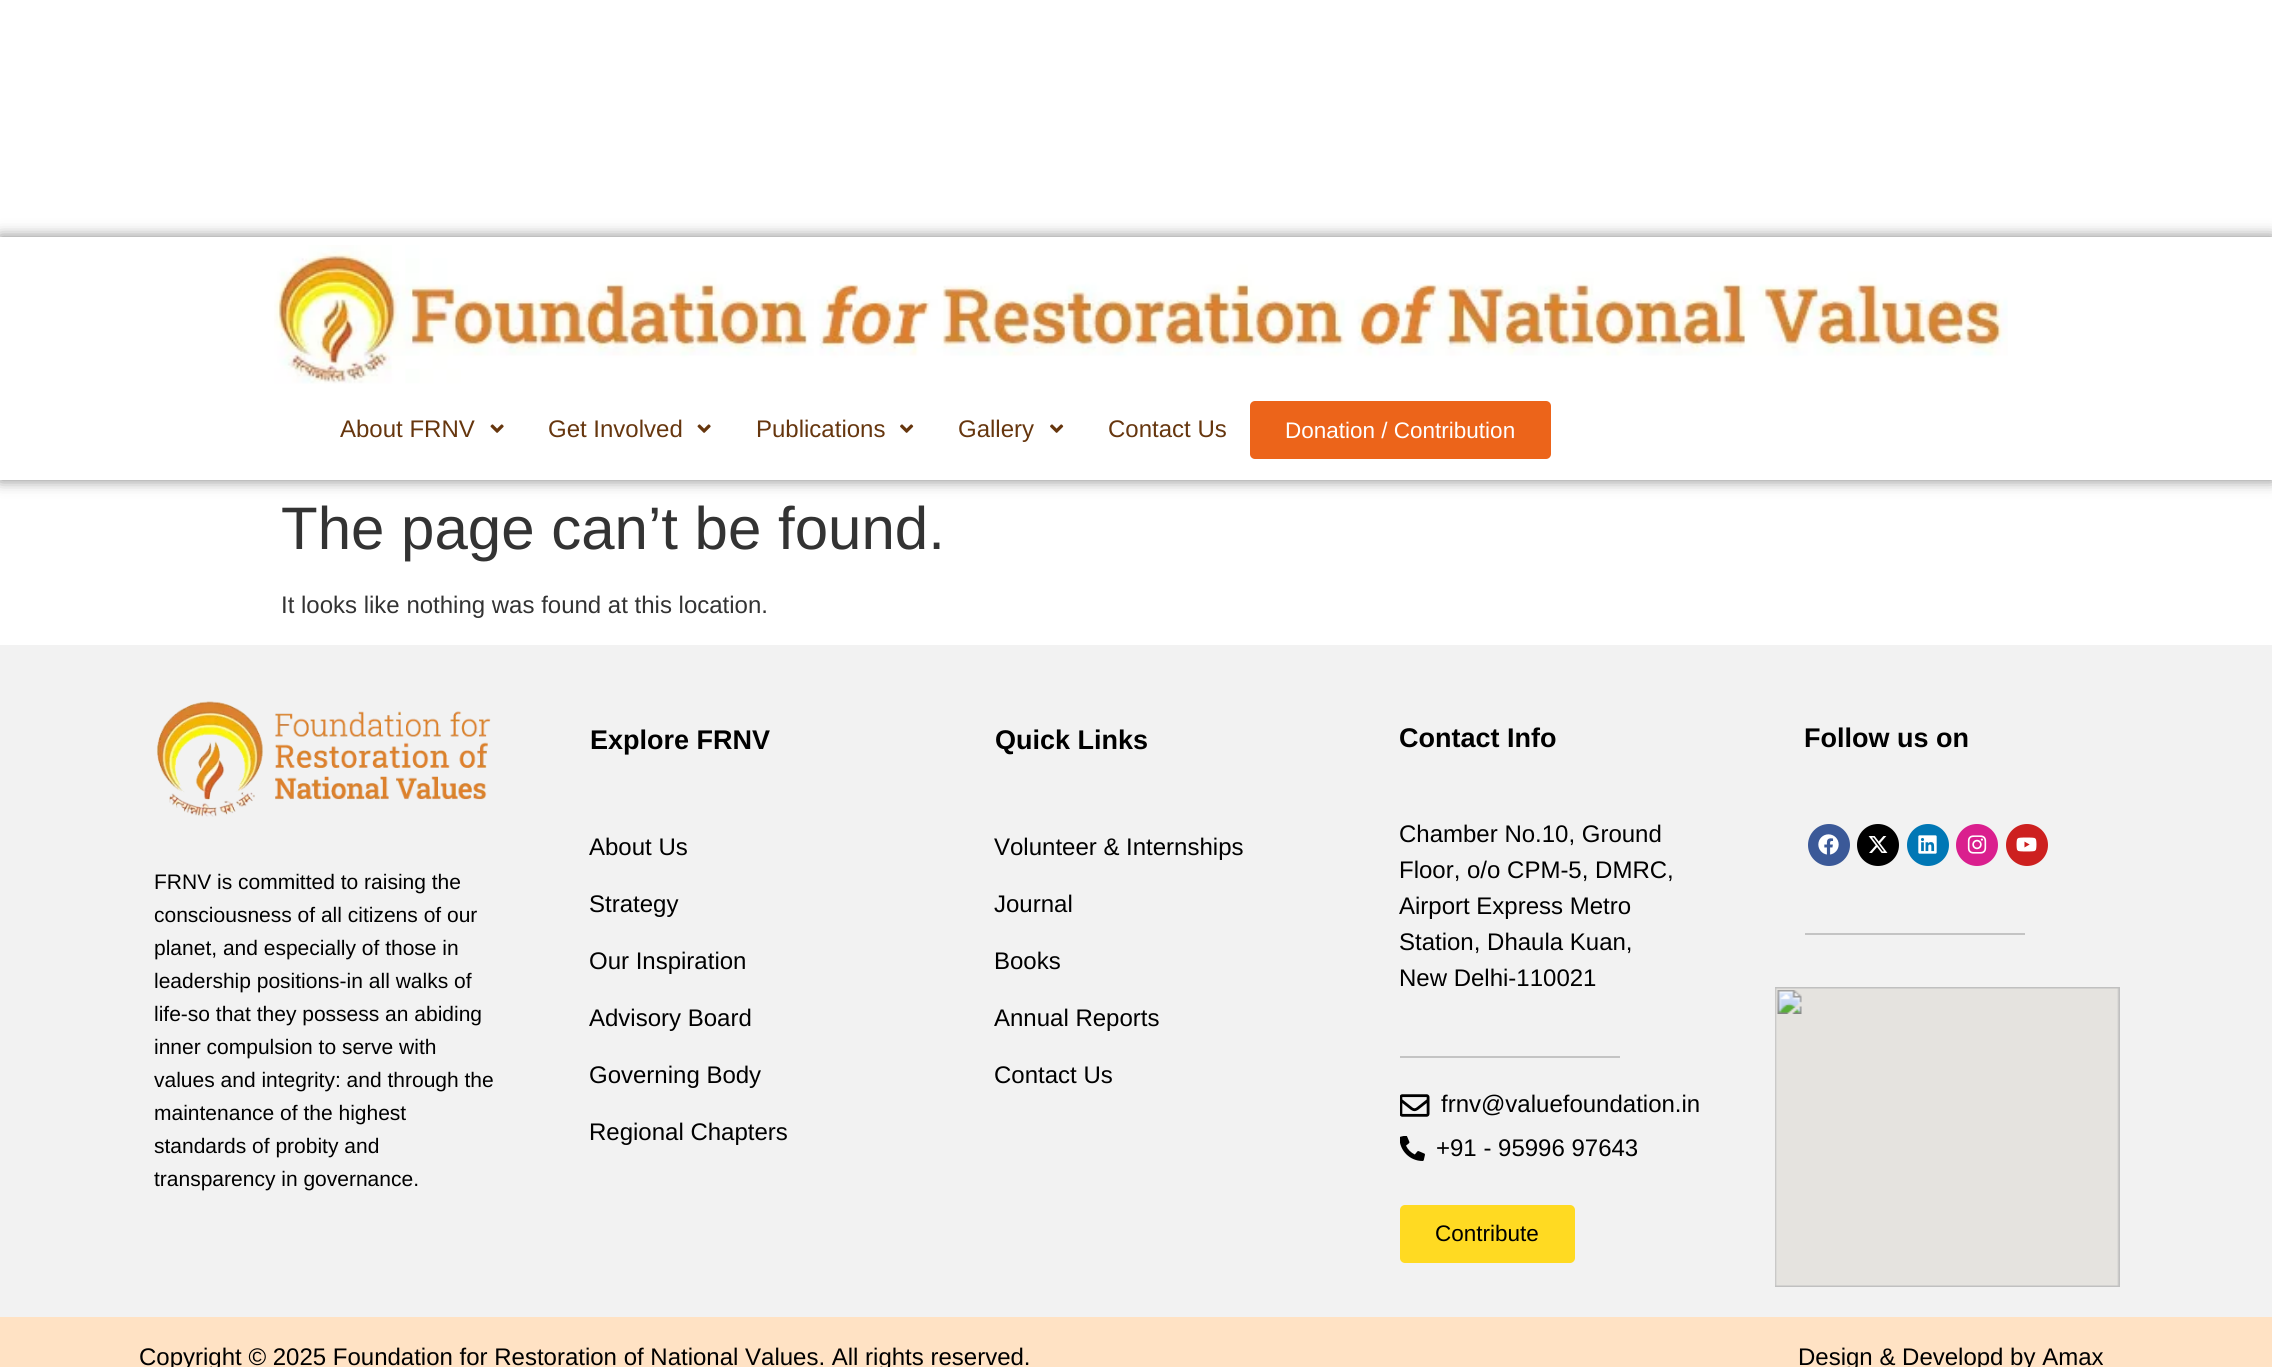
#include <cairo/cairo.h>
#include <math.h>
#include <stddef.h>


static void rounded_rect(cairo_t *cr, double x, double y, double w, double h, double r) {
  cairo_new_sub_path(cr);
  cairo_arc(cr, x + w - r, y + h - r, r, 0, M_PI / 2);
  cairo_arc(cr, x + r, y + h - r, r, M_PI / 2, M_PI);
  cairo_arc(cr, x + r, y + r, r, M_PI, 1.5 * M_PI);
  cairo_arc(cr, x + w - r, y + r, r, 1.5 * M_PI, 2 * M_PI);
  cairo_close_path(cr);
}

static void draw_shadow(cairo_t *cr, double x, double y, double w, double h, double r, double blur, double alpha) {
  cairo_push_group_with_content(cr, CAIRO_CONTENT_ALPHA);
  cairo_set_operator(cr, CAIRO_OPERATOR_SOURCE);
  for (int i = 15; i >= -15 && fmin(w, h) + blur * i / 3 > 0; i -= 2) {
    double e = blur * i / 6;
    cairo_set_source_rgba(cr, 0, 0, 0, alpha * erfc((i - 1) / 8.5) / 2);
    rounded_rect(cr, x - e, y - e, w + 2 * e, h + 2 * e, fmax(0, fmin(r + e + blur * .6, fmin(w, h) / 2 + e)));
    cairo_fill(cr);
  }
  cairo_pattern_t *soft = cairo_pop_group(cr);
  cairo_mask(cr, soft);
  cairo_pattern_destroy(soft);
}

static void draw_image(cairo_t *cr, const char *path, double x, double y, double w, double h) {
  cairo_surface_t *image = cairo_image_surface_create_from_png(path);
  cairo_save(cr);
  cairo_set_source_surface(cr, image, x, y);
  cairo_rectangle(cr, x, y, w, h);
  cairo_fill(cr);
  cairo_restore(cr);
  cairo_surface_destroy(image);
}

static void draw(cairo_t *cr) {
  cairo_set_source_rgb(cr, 1, 1, 1);
  cairo_paint(cr);
  cairo_save(cr);
  cairo_set_fill_rule(cr, CAIRO_FILL_RULE_EVEN_ODD);
  cairo_new_path(cr);
  cairo_move_to(cr, 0, 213);
  cairo_line_to(cr, 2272, 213);
  cairo_line_to(cr, 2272, 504);
  cairo_line_to(cr, 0, 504);
  cairo_close_path(cr);
  cairo_move_to(cr, 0, 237);
  cairo_line_to(cr, 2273, 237);
  cairo_line_to(cr, 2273, 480);
  cairo_line_to(cr, 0, 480);
  cairo_close_path(cr);
  cairo_clip(cr);
  cairo_set_source_rgb(cr, 0, 0, 0);
  draw_shadow(cr, 0, 237, 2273, 243, 0, 7.5, 0.5);
  cairo_restore(cr);
  draw_image(cr, "images/1.png", 274, 245, 1734, 139);
  draw_image(cr, "images/2.png", 490, 424, 14, 9);
  draw_image(cr, "images/2.png", 697, 424, 14, 9);
  draw_image(cr, "images/3.png", 900, 424, 14, 9);
  draw_image(cr, "images/3.png", 1050, 424, 14, 9);
  cairo_set_source_rgb(cr, 236 / 255.0, 100 / 255.0, 26 / 255.0);
  rounded_rect(cr, 1250, 401, 301, 58, 5);
  cairo_fill(cr);
  cairo_set_source_rgb(cr, 242 / 255.0, 242 / 255.0, 242 / 255.0);
  cairo_rectangle(cr, 0, 645, 2272, 672);
  cairo_fill(cr);
  draw_image(cr, "images/4.png", 156, 701, 335, 116);
  cairo_set_source_rgb(cr, 196 / 255.0, 196 / 255.0, 196 / 255.0);
  cairo_rectangle(cr, 1400, 1056, 220, 2);
  cairo_fill(cr);
  draw_image(cr, "images/5.png", 1400, 1094, 30, 23);
  draw_image(cr, "images/6.png", 1400, 1136, 25, 25);
  cairo_set_source_rgb(cr, 1, 218 / 255.0, 34 / 255.0);
  rounded_rect(cr, 1400, 1205, 175, 58, 5);
  cairo_fill(cr);
  cairo_set_source_rgb(cr, 59 / 255.0, 89 / 255.0, 152 / 255.0);
  cairo_arc(cr, 1829, 845, 21, 0, 2 * M_PI);
  cairo_fill(cr);
  draw_image(cr, "images/7.png", 1818, 834, 21, 21);
  cairo_set_source_rgb(cr, 0, 0, 0);
  cairo_arc(cr, 1878, 845, 21, 0, 2 * M_PI);
  cairo_fill(cr);
  draw_image(cr, "images/8.png", 1868, 836, 20, 17);
  cairo_set_source_rgb(cr, 0, 119 / 255.0, 181 / 255.0);
  cairo_arc(cr, 1928, 845, 21, 0, 2 * M_PI);
  cairo_fill(cr);
  draw_image(cr, "images/9.png", 1918, 835, 19, 19);
  cairo_set_source_rgb(cr, 218 / 255.0, 31 / 255.0, 142 / 255.0);
  cairo_arc(cr, 1977, 845, 21, 0, 2 * M_PI);
  cairo_fill(cr);
  draw_image(cr, "images/10.png", 1967, 835, 20, 19);
  cairo_set_source_rgb(cr, 205 / 255.0, 32 / 255.0, 31 / 255.0);
  cairo_arc(cr, 2027, 845, 21, 0, 2 * M_PI);
  cairo_fill(cr);
  draw_image(cr, "images/11.png", 2016, 837, 21, 15);
  cairo_set_source_rgb(cr, 196 / 255.0, 196 / 255.0, 196 / 255.0);
  cairo_rectangle(cr, 1805, 933, 220, 2);
  cairo_fill(cr);
  draw_image(cr, "images/12.png", 1775, 987, 345, 300);
  cairo_set_source_rgb(cr, 1, 226 / 255.0, 196 / 255.0);
  cairo_rectangle(cr, 0, 1317, 2272, 50);
  cairo_fill(cr);
  cairo_select_font_face(cr, "Liberation Sans", CAIRO_FONT_SLANT_NORMAL, CAIRO_FONT_WEIGHT_NORMAL);
  cairo_set_font_size(cr, 24);
  cairo_set_source_rgb(cr, 102 / 255.0, 54 / 255.0, 14 / 255.0);
  cairo_move_to(cr, 340, 437);
  cairo_show_text(cr, "About FRNV");
  cairo_move_to(cr, 548, 437);
  cairo_show_text(cr, "Get Involved");
  cairo_move_to(cr, 756, 437);
  cairo_show_text(cr, "Publications");
  cairo_move_to(cr, 958, 437);
  cairo_show_text(cr, "Gallery");
  cairo_move_to(cr, 1108, 437);
  cairo_show_text(cr, "Contact Us");
  cairo_set_font_size(cr, 22.5);
  cairo_set_source_rgb(cr, 1, 1, 1);
  cairo_move_to(cr, 1285, 438);
  cairo_show_text(cr, "Donation / Contribution");
  cairo_set_font_size(cr, 60);
  cairo_set_source_rgb(cr, 51 / 255.0, 51 / 255.0, 51 / 255.0);
  cairo_move_to(cr, 281, 549);
  cairo_show_text(cr, "The page can’t be found.");
  cairo_set_font_size(cr, 24);
  cairo_move_to(cr, 281, 613);
  cairo_show_text(cr, "It looks like nothing was found at this location.");
  cairo_set_font_size(cr, 21);
  cairo_set_source_rgb(cr, 0, 0, 0);
  cairo_move_to(cr, 154, 889);
  cairo_show_text(cr, "FRNV is committed to raising the");
  cairo_move_to(cr, 154, 922);
  cairo_show_text(cr, "consciousness of all citizens of our");
  cairo_move_to(cr, 154, 955);
  cairo_show_text(cr, "planet, and especially of those in");
  cairo_move_to(cr, 154, 988);
  cairo_show_text(cr, "leadership positions-in all walks of");
  cairo_move_to(cr, 154, 1021);
  cairo_show_text(cr, "life-so that they possess an abiding");
  cairo_move_to(cr, 154, 1054);
  cairo_show_text(cr, "inner compulsion to serve with");
  cairo_move_to(cr, 154, 1087);
  cairo_show_text(cr, "values and integrity: and through the");
  cairo_move_to(cr, 154, 1120);
  cairo_show_text(cr, "maintenance of the highest");
  cairo_move_to(cr, 154, 1153);
  cairo_show_text(cr, "standards of probity and");
  cairo_move_to(cr, 154, 1186);
  cairo_show_text(cr, "transparency in governance.");
  cairo_select_font_face(cr, "Liberation Sans", CAIRO_FONT_SLANT_NORMAL, CAIRO_FONT_WEIGHT_BOLD);
  cairo_set_font_size(cr, 27);
  cairo_move_to(cr, 590, 749);
  cairo_show_text(cr, "Explore FRNV");
  cairo_select_font_face(cr, "Liberation Sans", CAIRO_FONT_SLANT_NORMAL, CAIRO_FONT_WEIGHT_NORMAL);
  cairo_set_font_size(cr, 24);
  cairo_move_to(cr, 589, 855);
  cairo_show_text(cr, "About Us");
  cairo_move_to(cr, 589, 912);
  cairo_show_text(cr, "Strategy");
  cairo_move_to(cr, 589, 969);
  cairo_show_text(cr, "Our Inspiration");
  cairo_move_to(cr, 589, 1026);
  cairo_show_text(cr, "Advisory Board");
  cairo_move_to(cr, 589, 1083);
  cairo_show_text(cr, "Governing Body");
  cairo_move_to(cr, 589, 1140);
  cairo_show_text(cr, "Regional Chapters");
  cairo_select_font_face(cr, "Liberation Sans", CAIRO_FONT_SLANT_NORMAL, CAIRO_FONT_WEIGHT_BOLD);
  cairo_set_font_size(cr, 27);
  cairo_move_to(cr, 995, 749);
  cairo_show_text(cr, "Quick Links");
  cairo_select_font_face(cr, "Liberation Sans", CAIRO_FONT_SLANT_NORMAL, CAIRO_FONT_WEIGHT_NORMAL);
  cairo_set_font_size(cr, 24);
  cairo_move_to(cr, 994, 855);
  cairo_show_text(cr, "Volunteer & Internships");
  cairo_move_to(cr, 994, 912);
  cairo_show_text(cr, "Journal");
  cairo_move_to(cr, 994, 969);
  cairo_show_text(cr, "Books");
  cairo_move_to(cr, 994, 1026);
  cairo_show_text(cr, "Annual Reports");
  cairo_move_to(cr, 994, 1083);
  cairo_show_text(cr, "Contact Us");
  cairo_select_font_face(cr, "Liberation Sans", CAIRO_FONT_SLANT_NORMAL, CAIRO_FONT_WEIGHT_BOLD);
  cairo_set_font_size(cr, 27);
  cairo_move_to(cr, 1399, 747);
  cairo_show_text(cr, "Contact Info");
  cairo_select_font_face(cr, "Liberation Sans", CAIRO_FONT_SLANT_NORMAL, CAIRO_FONT_WEIGHT_NORMAL);
  cairo_set_font_size(cr, 24);
  cairo_move_to(cr, 1399, 842);
  cairo_show_text(cr, "Chamber No.10, Ground");
  cairo_move_to(cr, 1399, 878);
  cairo_show_text(cr, "Floor, o/o CPM-5, DMRC,");
  cairo_move_to(cr, 1399, 914);
  cairo_show_text(cr, "Airport Express Metro");
  cairo_move_to(cr, 1399, 950);
  cairo_show_text(cr, "Station, Dhaula Kuan,");
  cairo_move_to(cr, 1399, 986);
  cairo_show_text(cr, "New Delhi-110021");
  cairo_move_to(cr, 1441, 1112);
  cairo_show_text(cr, "frnv@valuefoundation.in");
  cairo_move_to(cr, 1436, 1156);
  cairo_show_text(cr, "+91 - 95996 97643");
  cairo_set_font_size(cr, 22.5);
  cairo_move_to(cr, 1435, 1241);
  cairo_show_text(cr, "Contribute");
  cairo_select_font_face(cr, "Liberation Sans", CAIRO_FONT_SLANT_NORMAL, CAIRO_FONT_WEIGHT_BOLD);
  cairo_set_font_size(cr, 27);
  cairo_move_to(cr, 1804, 747);
  cairo_show_text(cr, "Follow us on");
  cairo_select_font_face(cr, "Liberation Sans", CAIRO_FONT_SLANT_NORMAL, CAIRO_FONT_WEIGHT_NORMAL);
  cairo_set_font_size(cr, 24);
  cairo_move_to(cr, 139, 1365);
  cairo_show_text(cr, "Copyright © 2025 Foundation for Restoration of National Values. All rights reserved.");
  cairo_move_to(cr, 1798, 1365);
  cairo_show_text(cr, "Design & Developd by Amax");
}

int main(void) {
  cairo_surface_t *surface = cairo_image_surface_create(CAIRO_FORMAT_RGB24, 2272, 1367);
  cairo_t *cr = cairo_create(surface);
  cairo_font_options_t *options = cairo_font_options_create();
  cairo_font_options_set_hint_metrics(options, CAIRO_HINT_METRICS_OFF);
  cairo_font_options_set_hint_style(options, CAIRO_HINT_STYLE_NONE);
  cairo_set_font_options(cr, options);
  cairo_set_miter_limit(cr, 4);
  draw(cr);
  cairo_surface_write_to_png(surface, "out.png");
  cairo_font_options_destroy(options);
  cairo_destroy(cr);
  cairo_surface_destroy(surface);
  return 0;
}
